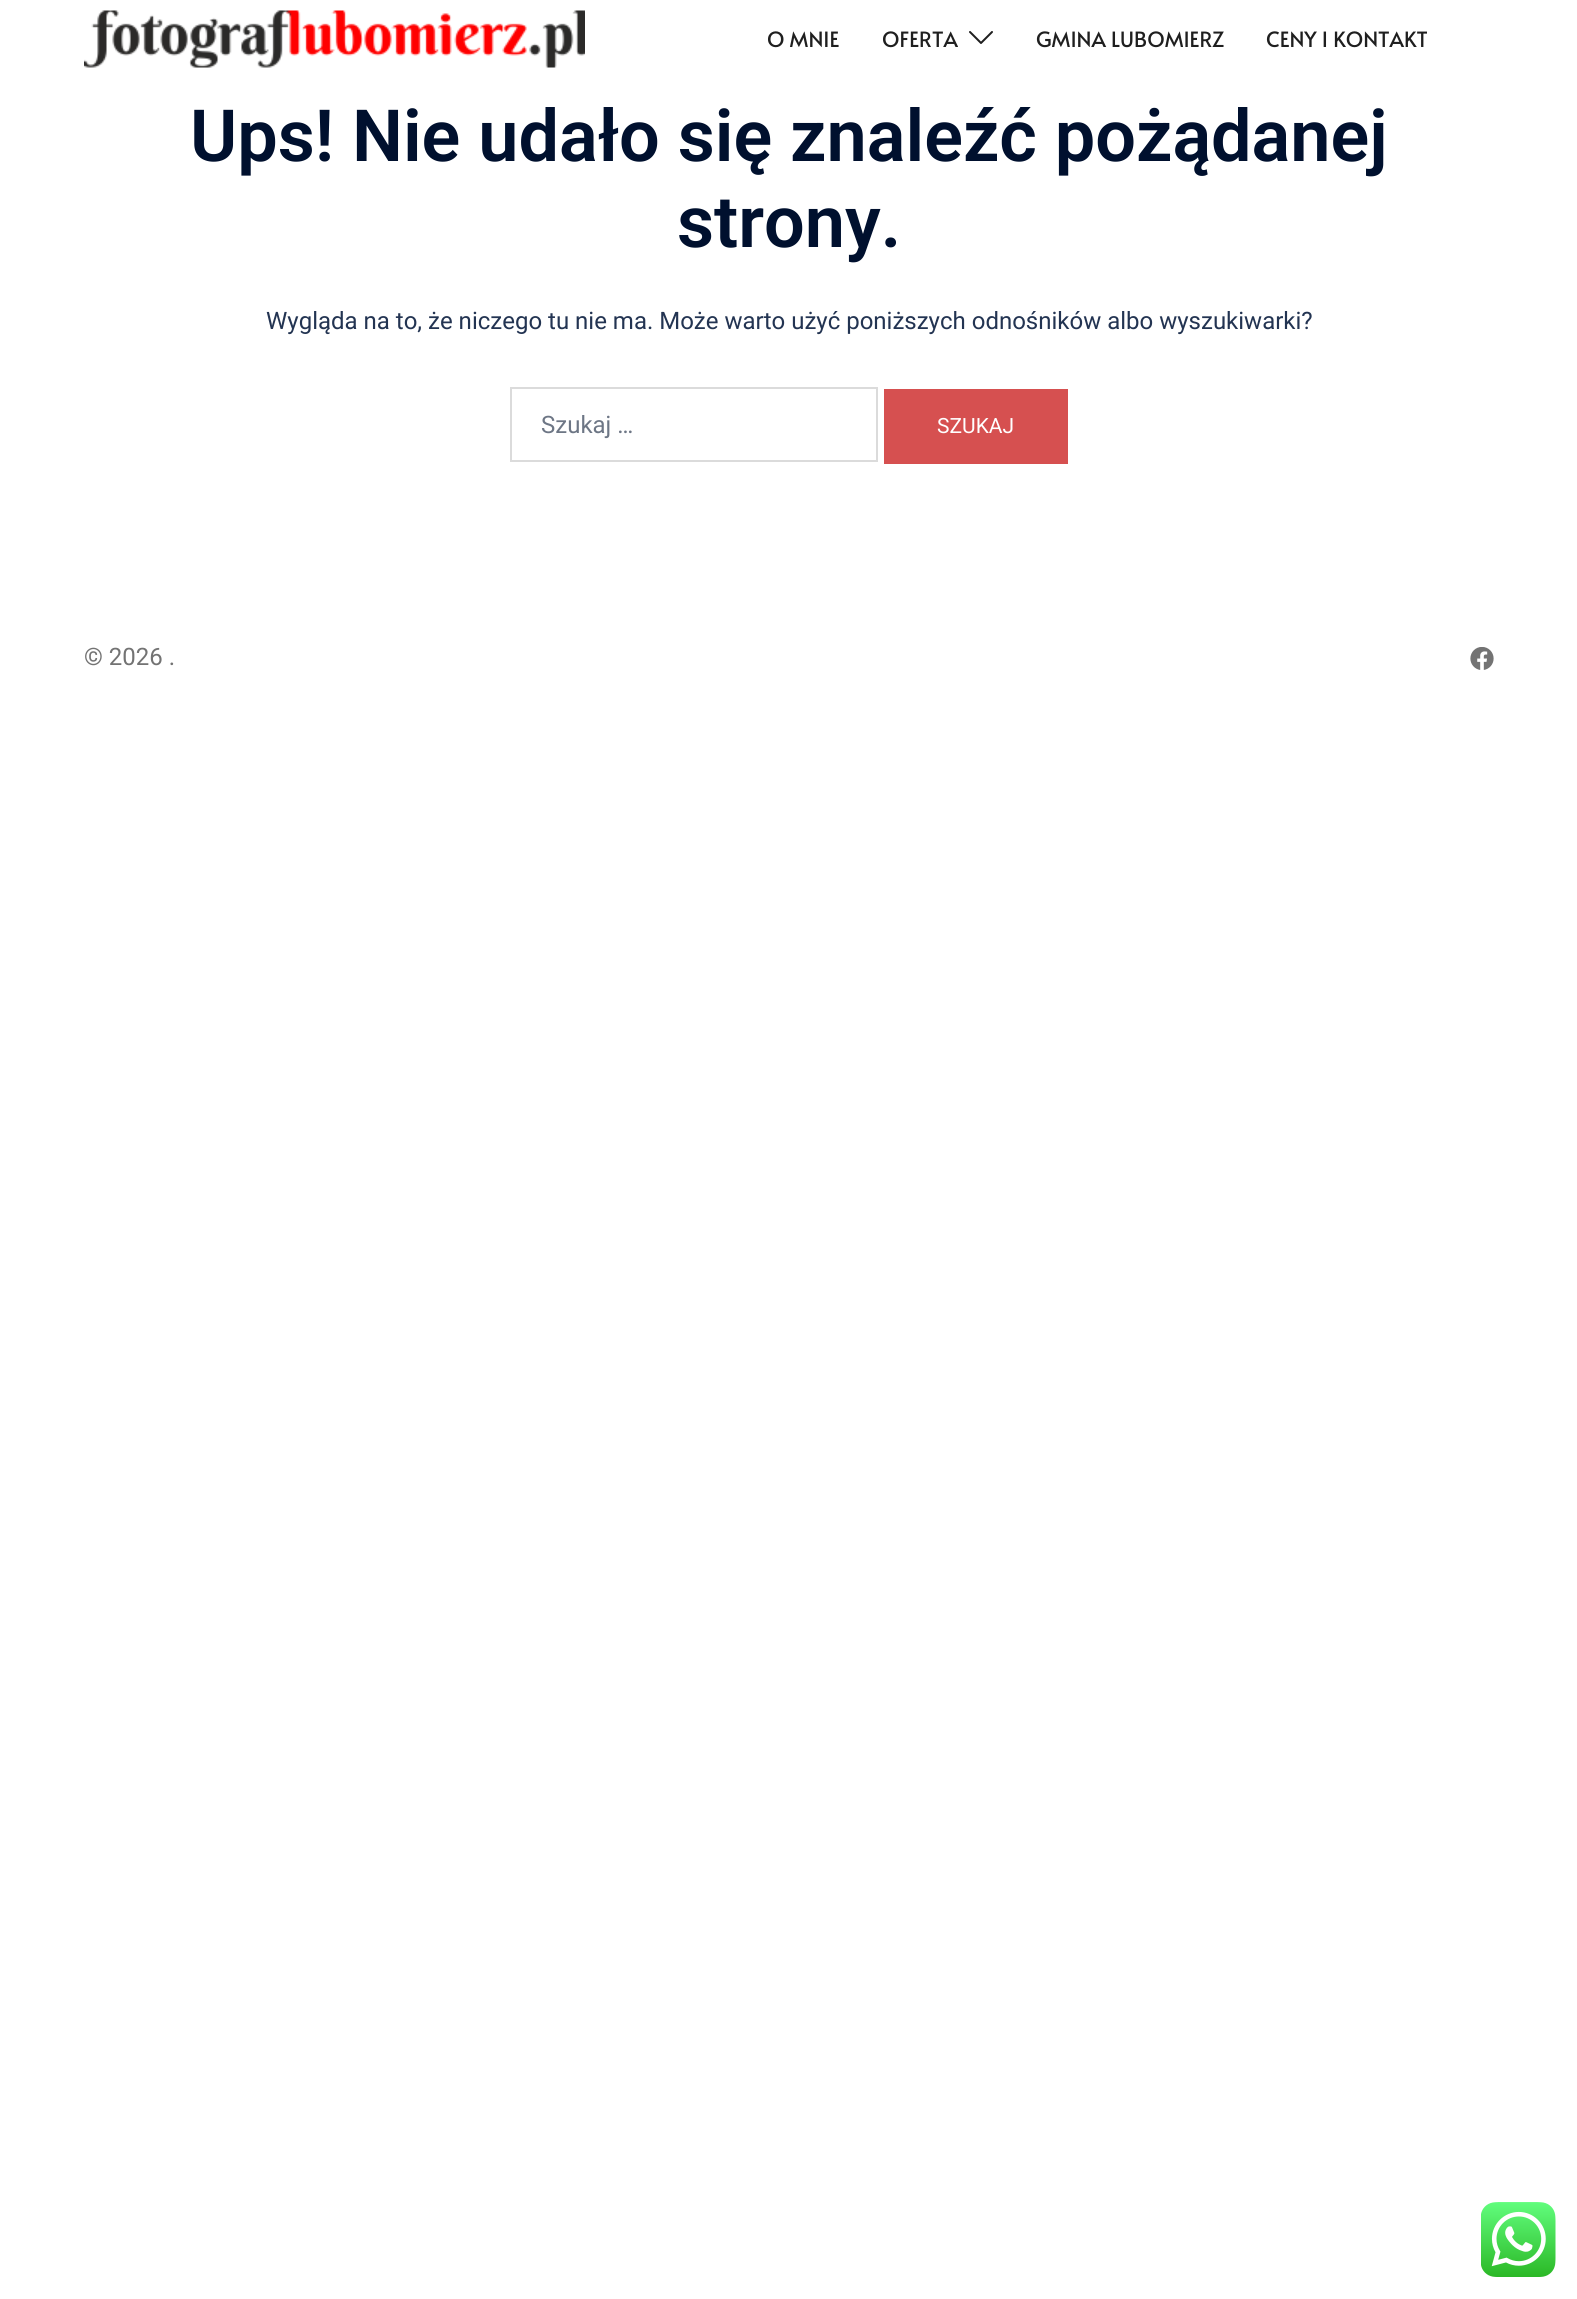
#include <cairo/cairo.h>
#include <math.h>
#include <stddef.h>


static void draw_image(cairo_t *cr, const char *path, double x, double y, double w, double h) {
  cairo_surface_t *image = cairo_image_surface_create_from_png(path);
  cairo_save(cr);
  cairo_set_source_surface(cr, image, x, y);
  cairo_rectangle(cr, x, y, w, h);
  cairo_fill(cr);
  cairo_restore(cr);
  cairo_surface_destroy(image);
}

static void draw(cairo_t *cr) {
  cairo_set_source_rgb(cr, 1, 1, 1);
  cairo_paint(cr);
  draw_image(cr, "images/1.png", 84, 10, 501, 58);
  draw_image(cr, "images/2.png", 969, 31, 24, 13);
  cairo_rectangle(cr, 511, 388, 366, 73);
  cairo_set_source_rgb(cr, 219 / 255.0, 219 / 255.0, 219 / 255.0);
  cairo_stroke(cr);
  cairo_set_source_rgb(cr, 214 / 255.0, 80 / 255.0, 80 / 255.0);
  cairo_rectangle(cr, 884, 389, 184, 75);
  cairo_fill(cr);
  draw_image(cr, "images/3.png", 1470, 647, 24, 23);
  draw_image(cr, "images/4.png", 1481, 2202, 75, 75);
  cairo_select_font_face(cr, "Alata", CAIRO_FONT_SLANT_NORMAL, CAIRO_FONT_WEIGHT_NORMAL);
  cairo_set_font_size(cr, 21);
  cairo_set_source_rgb(cr, 31 / 255.0, 31 / 255.0, 31 / 255.0);
  cairo_move_to(cr, 767, 47);
  cairo_show_text(cr, "O MNIE");
  cairo_move_to(cr, 882, 47);
  cairo_show_text(cr, "OFERTA");
  cairo_move_to(cr, 1036, 47);
  cairo_show_text(cr, "GMINA LUBOMIERZ");
  cairo_move_to(cr, 1266, 47);
  cairo_show_text(cr, "CENY I KONTAKT");
  cairo_select_font_face(cr, "Roboto SemiBold", CAIRO_FONT_SLANT_NORMAL, CAIRO_FONT_WEIGHT_NORMAL);
  cairo_set_font_size(cr, 72);
  cairo_set_source_rgb(cr, 0, 16 / 255.0, 46 / 255.0);
  cairo_move_to(cr, 190, 161);
  cairo_show_text(cr, "Ups! Nie udało się znaleźć pożądanej");
  cairo_move_to(cr, 677, 247);
  cairo_show_text(cr, "strony.");
  cairo_select_font_face(cr, "Roboto", CAIRO_FONT_SLANT_NORMAL, CAIRO_FONT_WEIGHT_NORMAL);
  cairo_set_font_size(cr, 24);
  cairo_set_source_rgb(cr, 35 / 255.0, 52 / 255.0, 82 / 255.0);
  cairo_move_to(cr, 266, 329);
  cairo_show_text(cr, "Wygląda na to, że niczego tu nie ma. Może warto użyć poniższych odnośników albo wyszukiwarki?");
  cairo_set_source_rgb(cr, 109 / 255.0, 118 / 255.0, 133 / 255.0);
  cairo_move_to(cr, 541, 433);
  cairo_show_text(cr, "Szukaj …");
  cairo_set_font_size(cr, 21);
  cairo_set_source_rgb(cr, 1, 1, 1);
  cairo_move_to(cr, 937, 433);
  cairo_show_text(cr, "SZUKAJ");
  cairo_set_font_size(cr, 24);
  cairo_set_source_rgb(cr, 115 / 255.0, 115 / 255.0, 115 / 255.0);
  cairo_move_to(cr, 84, 665);
  cairo_show_text(cr, "© 2026 .");
}

int main(void) {
  cairo_surface_t *surface = cairo_image_surface_create(CAIRO_FORMAT_RGB24, 1577, 2299);
  cairo_t *cr = cairo_create(surface);
  cairo_font_options_t *options = cairo_font_options_create();
  cairo_font_options_set_hint_metrics(options, CAIRO_HINT_METRICS_OFF);
  cairo_font_options_set_hint_style(options, CAIRO_HINT_STYLE_NONE);
  cairo_set_font_options(cr, options);
  cairo_set_miter_limit(cr, 4);
  draw(cr);
  cairo_surface_write_to_png(surface, "out.png");
  cairo_font_options_destroy(options);
  cairo_destroy(cr);
  cairo_surface_destroy(surface);
  return 0;
}
